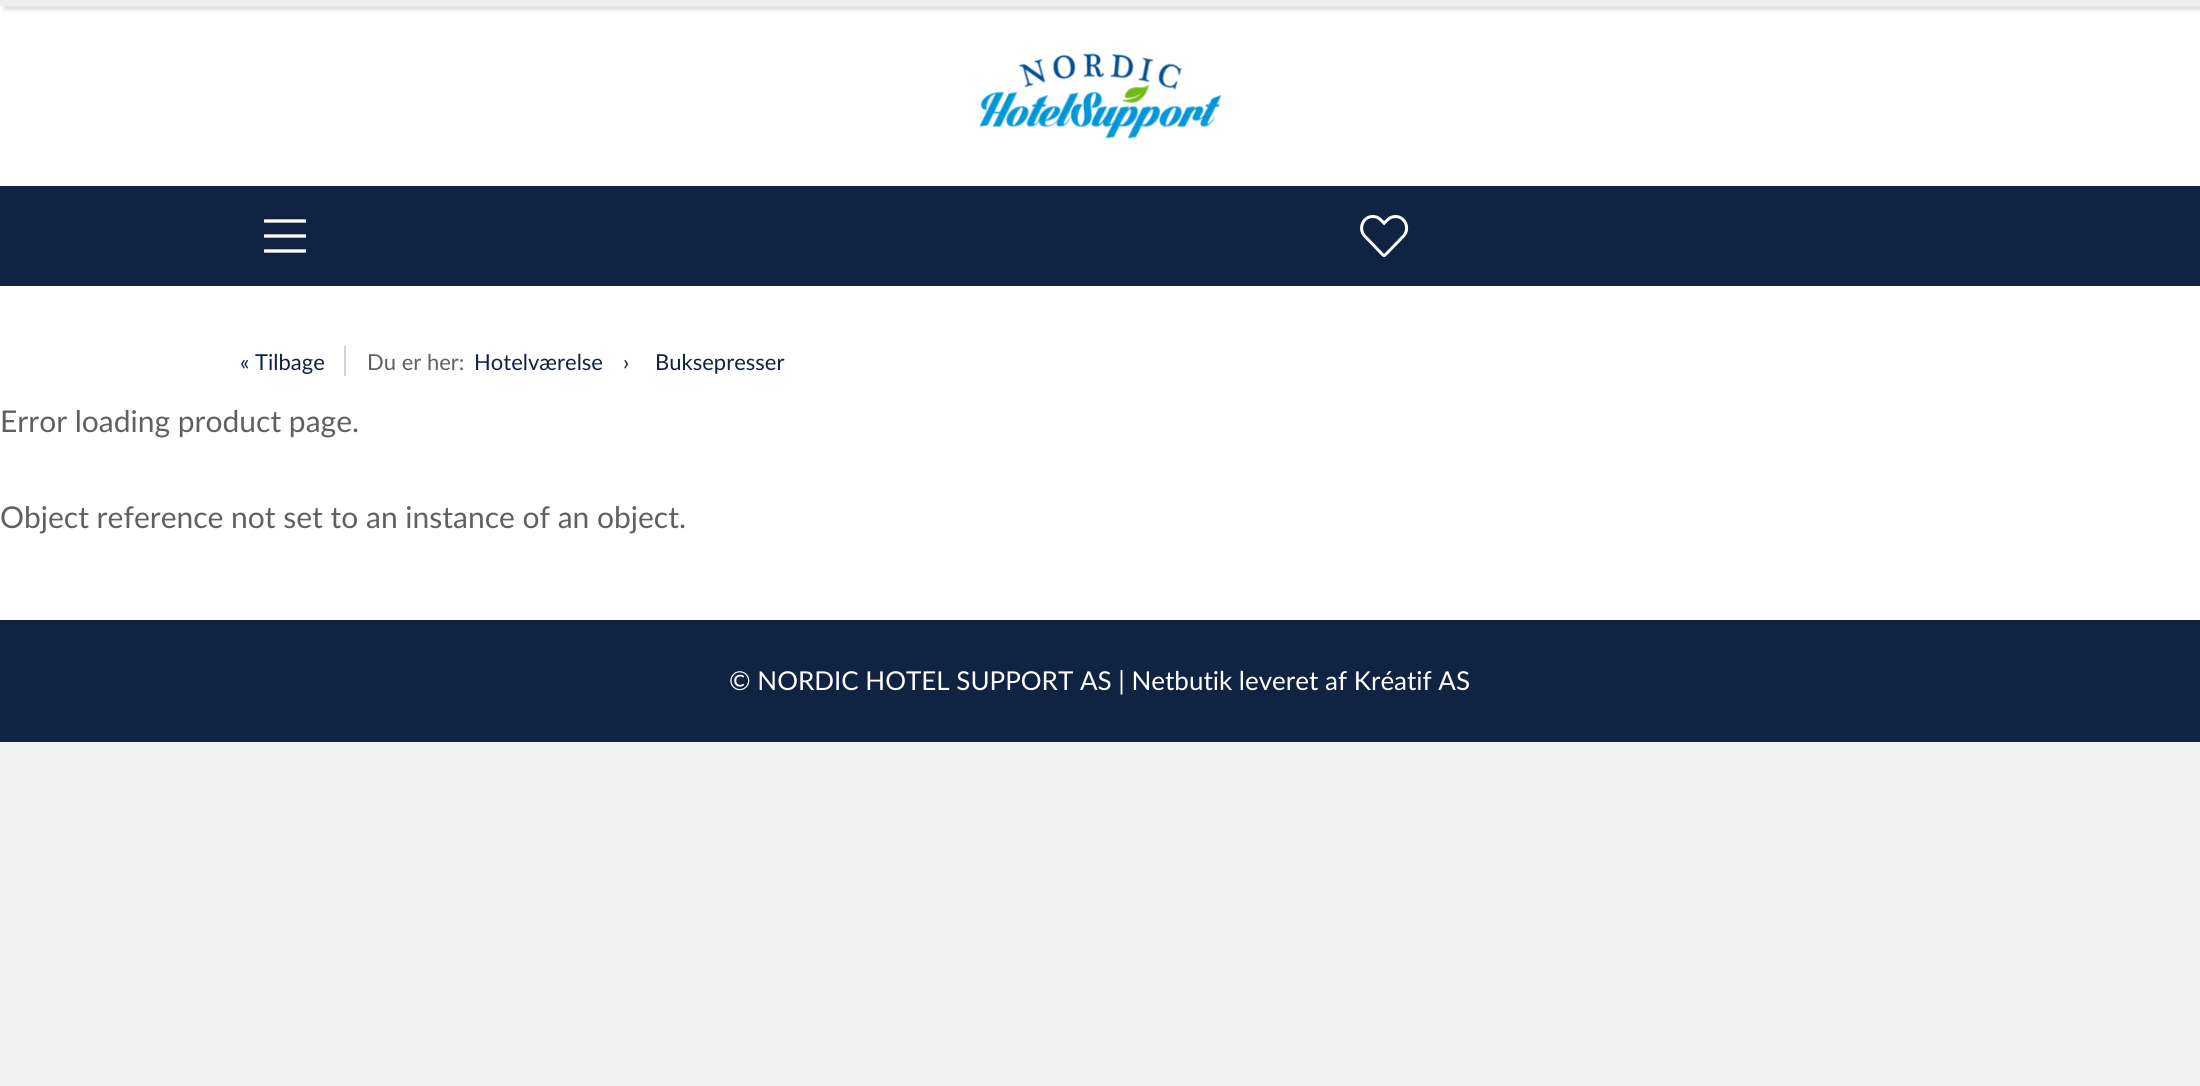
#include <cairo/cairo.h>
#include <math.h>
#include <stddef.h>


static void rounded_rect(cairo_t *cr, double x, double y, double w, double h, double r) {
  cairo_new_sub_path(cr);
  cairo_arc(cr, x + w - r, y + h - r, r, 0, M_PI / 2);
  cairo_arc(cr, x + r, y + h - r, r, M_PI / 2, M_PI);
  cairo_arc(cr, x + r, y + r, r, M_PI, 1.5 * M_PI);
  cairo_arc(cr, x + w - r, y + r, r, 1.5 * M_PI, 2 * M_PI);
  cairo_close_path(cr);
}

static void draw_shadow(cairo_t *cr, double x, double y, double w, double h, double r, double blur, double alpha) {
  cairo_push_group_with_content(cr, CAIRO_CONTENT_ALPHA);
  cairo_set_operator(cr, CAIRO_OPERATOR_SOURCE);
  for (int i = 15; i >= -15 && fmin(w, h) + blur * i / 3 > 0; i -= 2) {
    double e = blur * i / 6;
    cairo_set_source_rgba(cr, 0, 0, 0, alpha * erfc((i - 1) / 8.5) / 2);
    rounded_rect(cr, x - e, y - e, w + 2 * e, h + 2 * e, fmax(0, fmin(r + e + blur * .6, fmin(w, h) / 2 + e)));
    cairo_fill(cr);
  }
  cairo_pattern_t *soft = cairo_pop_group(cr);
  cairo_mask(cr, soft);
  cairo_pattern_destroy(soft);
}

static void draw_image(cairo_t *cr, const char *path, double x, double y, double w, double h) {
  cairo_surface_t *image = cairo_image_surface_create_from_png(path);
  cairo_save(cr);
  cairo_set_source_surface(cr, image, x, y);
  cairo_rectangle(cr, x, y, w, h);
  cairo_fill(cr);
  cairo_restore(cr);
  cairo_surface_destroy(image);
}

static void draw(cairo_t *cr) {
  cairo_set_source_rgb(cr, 241 / 255.0, 241 / 255.0, 241 / 255.0);
  cairo_paint(cr);
  cairo_set_source_rgb(cr, 1, 1, 1);
  cairo_rectangle(cr, 0, 6, 2200, 614);
  cairo_fill(cr);
  cairo_set_source_rgb(cr, 221 / 255.0, 221 / 255.0, 221 / 255.0);
  draw_shadow(cr, 4, 4, 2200, 6, 0, 2, 1);
  cairo_set_source_rgb(cr, 238 / 255.0, 238 / 255.0, 238 / 255.0);
  cairo_rectangle(cr, 0, 0, 2200, 6);
  cairo_fill(cr);
  draw_image(cr, "images/1.png", 979, 53, 243, 86);
  cairo_set_source_rgb(cr, 16 / 255.0, 35 / 255.0, 66 / 255.0);
  cairo_rectangle(cr, 0, 186, 2200, 100);
  cairo_fill(cr);
  draw_image(cr, "images/2.png", 264, 219, 42, 34);
  draw_image(cr, "images/3.png", 1360, 215, 49, 42);
  cairo_set_source_rgb(cr, 211 / 255.0, 211 / 255.0, 211 / 255.0);
  cairo_rectangle(cr, 344, 346, 2, 30);
  cairo_fill(cr);
  cairo_set_source_rgb(cr, 16 / 255.0, 35 / 255.0, 66 / 255.0);
  cairo_rectangle(cr, 0, 620, 2200, 122);
  cairo_fill(cr);
  cairo_select_font_face(cr, "Lato", CAIRO_FONT_SLANT_NORMAL, CAIRO_FONT_WEIGHT_NORMAL);
  cairo_set_font_size(cr, 22);
  cairo_move_to(cr, 240, 370);
  cairo_show_text(cr, "« Tilbage");
  cairo_set_source_rgb(cr, 96 / 255.0, 96 / 255.0, 96 / 255.0);
  cairo_move_to(cr, 367, 370);
  cairo_show_text(cr, "Du er her:");
  cairo_set_source_rgb(cr, 16 / 255.0, 35 / 255.0, 66 / 255.0);
  cairo_move_to(cr, 474, 370);
  cairo_show_text(cr, "Hotelværelse");
  cairo_move_to(cr, 623, 370);
  cairo_show_text(cr, "›");
  cairo_move_to(cr, 655, 370);
  cairo_show_text(cr, "Buksepresser");
  cairo_set_font_size(cr, 30);
  cairo_set_source_rgb(cr, 96 / 255.0, 96 / 255.0, 96 / 255.0);
  cairo_move_to(cr, 0, 432);
  cairo_show_text(cr, "Error loading product page.");
  cairo_move_to(cr, 0, 528);
  cairo_show_text(cr, "Object reference not set to an instance of an object.");
  cairo_set_font_size(cr, 26);
  cairo_set_source_rgb(cr, 1, 1, 1);
  cairo_move_to(cr, 729, 690);
  cairo_show_text(cr, "© NORDIC HOTEL SUPPORT AS | Netbutik leveret af Kréatif AS");
}

int main(void) {
  cairo_surface_t *surface = cairo_image_surface_create(CAIRO_FORMAT_RGB24, 2200, 1086);
  cairo_t *cr = cairo_create(surface);
  cairo_font_options_t *options = cairo_font_options_create();
  cairo_font_options_set_hint_metrics(options, CAIRO_HINT_METRICS_OFF);
  cairo_font_options_set_hint_style(options, CAIRO_HINT_STYLE_NONE);
  cairo_set_font_options(cr, options);
  cairo_set_miter_limit(cr, 4);
  draw(cr);
  cairo_surface_write_to_png(surface, "out.png");
  cairo_font_options_destroy(options);
  cairo_destroy(cr);
  cairo_surface_destroy(surface);
  return 0;
}
